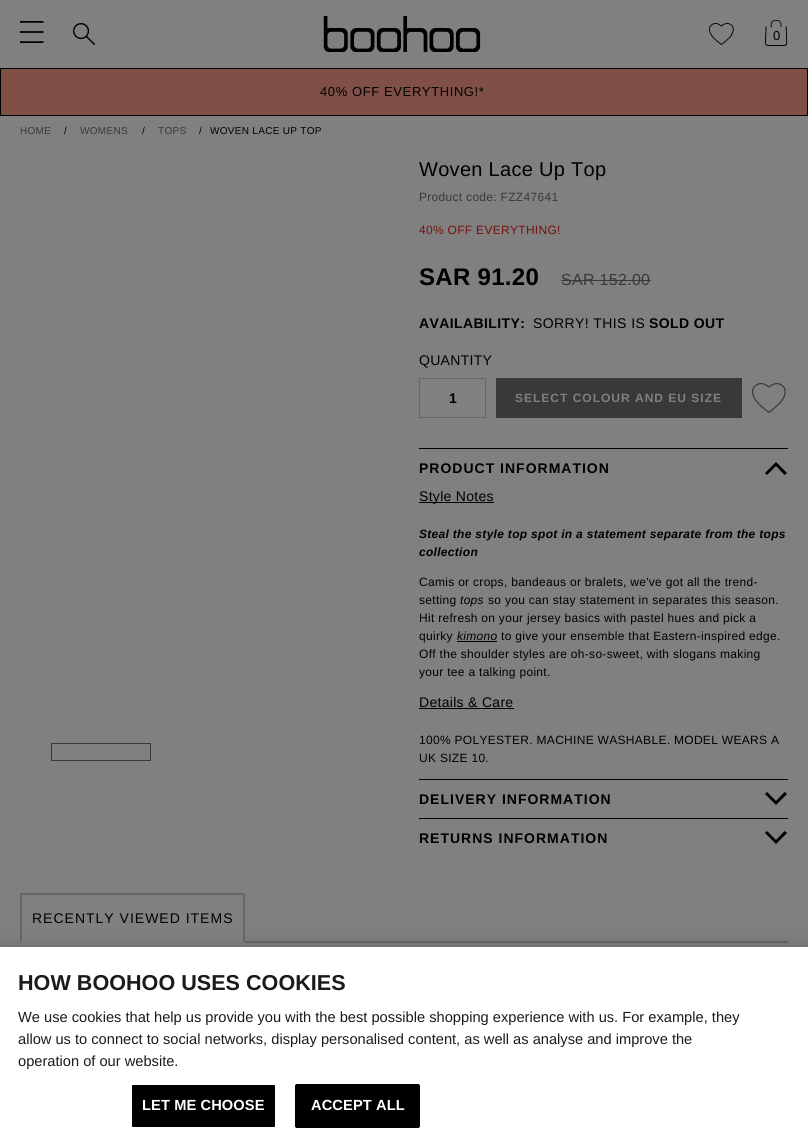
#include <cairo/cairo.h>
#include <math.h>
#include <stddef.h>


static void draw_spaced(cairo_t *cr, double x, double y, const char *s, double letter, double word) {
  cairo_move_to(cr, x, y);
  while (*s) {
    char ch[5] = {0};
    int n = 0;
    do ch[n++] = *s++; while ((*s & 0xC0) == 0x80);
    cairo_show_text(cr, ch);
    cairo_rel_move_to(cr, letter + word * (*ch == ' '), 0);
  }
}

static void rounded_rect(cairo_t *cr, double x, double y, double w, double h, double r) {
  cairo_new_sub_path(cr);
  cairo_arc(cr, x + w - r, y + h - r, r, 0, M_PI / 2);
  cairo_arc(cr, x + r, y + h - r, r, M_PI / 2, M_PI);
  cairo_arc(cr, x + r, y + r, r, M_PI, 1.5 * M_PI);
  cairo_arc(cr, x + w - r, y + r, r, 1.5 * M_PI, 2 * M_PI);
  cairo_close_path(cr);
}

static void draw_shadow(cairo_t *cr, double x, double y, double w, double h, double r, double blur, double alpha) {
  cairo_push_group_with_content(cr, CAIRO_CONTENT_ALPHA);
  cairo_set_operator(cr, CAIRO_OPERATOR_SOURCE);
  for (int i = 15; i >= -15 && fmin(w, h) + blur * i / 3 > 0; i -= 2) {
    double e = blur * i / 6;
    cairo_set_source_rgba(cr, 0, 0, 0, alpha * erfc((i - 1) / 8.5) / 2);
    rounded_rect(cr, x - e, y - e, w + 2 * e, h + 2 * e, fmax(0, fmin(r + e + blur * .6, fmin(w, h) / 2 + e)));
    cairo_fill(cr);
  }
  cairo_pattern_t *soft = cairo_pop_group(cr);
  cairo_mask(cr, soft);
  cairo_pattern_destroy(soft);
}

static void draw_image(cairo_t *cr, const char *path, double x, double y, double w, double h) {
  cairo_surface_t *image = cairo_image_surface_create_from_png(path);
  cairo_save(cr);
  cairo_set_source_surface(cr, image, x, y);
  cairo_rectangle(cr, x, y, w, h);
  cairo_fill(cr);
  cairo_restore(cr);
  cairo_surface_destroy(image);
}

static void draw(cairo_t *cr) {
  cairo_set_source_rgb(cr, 128 / 255.0, 128 / 255.0, 128 / 255.0);
  cairo_paint(cr);
  draw_image(cr, "images/1.png", 20, 21, 24, 22);
  draw_image(cr, "images/2.png", 73, 23, 22, 22);
  draw_image(cr, "images/3.png", 323, 16, 158, 36);
  draw_image(cr, "images/4.png", 709, 23, 25, 22);
  draw_image(cr, "images/5.png", 765, 20, 23, 26);
  cairo_set_source_rgb(cr, 128 / 255.0, 79 / 255.0, 70 / 255.0);
  cairo_rectangle(cr, 0.5, 68.5, 807, 47);
  cairo_fill_preserve(cr);
  cairo_set_source_rgb(cr, 0, 0, 0);
  cairo_set_line_width(cr, 1);
  cairo_stroke(cr);
  cairo_rectangle(cr, 51.5, 743.5, 99, 17);
  cairo_set_source_rgb(cr, 57 / 255.0, 57 / 255.0, 57 / 255.0);
  cairo_stroke(cr);
  cairo_rectangle(cr, 561, 280, 90, 1);
  cairo_fill(cr);
  cairo_rectangle(cr, 419.5, 378.5, 66, 39);
  cairo_set_source_rgb(cr, 103 / 255.0, 103 / 255.0, 103 / 255.0);
  cairo_stroke(cr);
  cairo_set_source_rgb(cr, 57 / 255.0, 57 / 255.0, 57 / 255.0);
  cairo_rectangle(cr, 496, 378, 246, 40);
  cairo_fill(cr);
  draw_image(cr, "images/6.png", 752, 383, 34, 30);
  cairo_set_source_rgb(cr, 0, 0, 0);
  cairo_rectangle(cr, 419, 448, 369, 1);
  cairo_fill(cr);
  cairo_new_path(cr);
  cairo_move_to(cr, 767, 475);
  cairo_line_to(cr, 776, 466);
  cairo_line_to(cr, 784.5, 475);
  cairo_line_to(cr, 787, 473);
  cairo_line_to(cr, 776, 462);
  cairo_line_to(cr, 765, 473);
  cairo_close_path(cr);
  cairo_fill(cr);
  cairo_rectangle(cr, 419, 502, 75, 1);
  cairo_fill(cr);
  cairo_rectangle(cr, 457, 641, 40, 1);
  cairo_fill(cr);
  cairo_rectangle(cr, 419, 708, 95, 1);
  cairo_fill(cr);
  cairo_rectangle(cr, 419, 779, 369, 1);
  cairo_fill(cr);
  cairo_new_path(cr);
  cairo_move_to(cr, 787, 794);
  cairo_line_to(cr, 776, 805);
  cairo_line_to(cr, 765, 794);
  cairo_line_to(cr, 767, 792);
  cairo_line_to(cr, 776, 801);
  cairo_line_to(cr, 784.5, 792);
  cairo_close_path(cr);
  cairo_fill(cr);
  cairo_rectangle(cr, 419, 818, 369, 1);
  cairo_fill(cr);
  cairo_new_path(cr);
  cairo_move_to(cr, 787, 833);
  cairo_line_to(cr, 776, 844);
  cairo_line_to(cr, 765, 833);
  cairo_line_to(cr, 767, 831);
  cairo_line_to(cr, 776, 840);
  cairo_line_to(cr, 784.5, 831);
  cairo_close_path(cr);
  cairo_fill(cr);
  cairo_set_source_rgb(cr, 103 / 255.0, 103 / 255.0, 103 / 255.0);
  cairo_rectangle(cr, 20, 893, 225, 2);
  cairo_fill(cr);
  cairo_new_path(cr);
  cairo_move_to(cr, 245, 893);
  cairo_line_to(cr, 245, 943);
  cairo_line_to(cr, 243, 941);
  cairo_line_to(cr, 243, 895);
  cairo_close_path(cr);
  cairo_fill(cr);
  cairo_set_source_rgb(cr, 128 / 255.0, 128 / 255.0, 128 / 255.0);
  cairo_new_path(cr);
  cairo_move_to(cr, 245, 943);
  cairo_line_to(cr, 20, 943);
  cairo_line_to(cr, 22, 941);
  cairo_line_to(cr, 243, 941);
  cairo_close_path(cr);
  cairo_fill(cr);
  cairo_set_source_rgb(cr, 103 / 255.0, 103 / 255.0, 103 / 255.0);
  cairo_new_path(cr);
  cairo_move_to(cr, 20, 943);
  cairo_line_to(cr, 20, 893);
  cairo_line_to(cr, 22, 895);
  cairo_line_to(cr, 22, 941);
  cairo_close_path(cr);
  cairo_fill(cr);
  cairo_rectangle(cr, 245, 941, 543, 2);
  cairo_fill(cr);
  cairo_set_source_rgb(cr, 0, 0, 0);
  draw_shadow(cr, 0, 947, 808, 197, 0, 9, 0.2);
  cairo_set_source_rgb(cr, 1, 1, 1);
  cairo_rectangle(cr, 0, 947, 808, 197);
  cairo_fill(cr);
  cairo_set_source_rgb(cr, 0, 0, 0);
  rounded_rect(cr, 131.5, 1084.5, 144, 43, 1.5);
  cairo_fill_preserve(cr);
  cairo_set_source_rgb(cr, 1, 1, 1);
  cairo_stroke(cr);
  cairo_set_source_rgb(cr, 0, 0, 0);
  rounded_rect(cr, 295.5, 1084.5, 124, 43, 1.5);
  cairo_fill_preserve(cr);
  cairo_stroke(cr);
  cairo_select_font_face(cr, "Liberation Sans", CAIRO_FONT_SLANT_NORMAL, CAIRO_FONT_WEIGHT_NORMAL);
  cairo_set_font_size(cr, 13);
  draw_spaced(cr, 773, 40, "0", 0.3, 0);
  draw_spaced(cr, 320, 96, "40% OFF EVERYTHING!*", 0.6, 0);
  cairo_set_font_size(cr, 10);
  cairo_set_source_rgb(cr, 57 / 255.0, 57 / 255.0, 57 / 255.0);
  draw_spaced(cr, 20, 134, "HOME", 0.3, 0);
  cairo_set_source_rgb(cr, 0, 0, 0);
  draw_spaced(cr, 64, 134, "/", 0.3, 0);
  cairo_set_source_rgb(cr, 57 / 255.0, 57 / 255.0, 57 / 255.0);
  draw_spaced(cr, 80, 134, "WOMENS", 0.3, 0);
  cairo_set_source_rgb(cr, 0, 0, 0);
  draw_spaced(cr, 142, 134, "/", 0.3, 0);
  cairo_set_source_rgb(cr, 57 / 255.0, 57 / 255.0, 57 / 255.0);
  draw_spaced(cr, 158, 134, "TOPS", 0.3, 0);
  cairo_set_source_rgb(cr, 0, 0, 0);
  draw_spaced(cr, 199, 134, "/", 0.3, 0);
  draw_spaced(cr, 210, 134, "WOVEN LACE UP TOP", 0.3, 0);
  cairo_set_font_size(cr, 20);
  draw_spaced(cr, 419, 176, "Woven Lace Up Top", 0.3, 0);
  cairo_set_font_size(cr, 12);
  cairo_set_source_rgb(cr, 57 / 255.0, 57 / 255.0, 57 / 255.0);
  draw_spaced(cr, 419, 201, "Product code: FZZ47641", 0.3, 0);
  cairo_set_source_rgb(cr, 116 / 255.0, 18 / 255.0, 14 / 255.0);
  draw_spaced(cr, 419, 234, "40% OFF EVERYTHING!", 0.3, 0);
  cairo_select_font_face(cr, "Liberation Sans", CAIRO_FONT_SLANT_NORMAL, CAIRO_FONT_WEIGHT_BOLD);
  cairo_set_font_size(cr, 24);
  cairo_set_source_rgb(cr, 0, 0, 0);
  draw_spaced(cr, 419, 285, "SAR 91.20", 0.3, 0);
  cairo_select_font_face(cr, "Liberation Sans", CAIRO_FONT_SLANT_NORMAL, CAIRO_FONT_WEIGHT_NORMAL);
  cairo_set_font_size(cr, 16);
  cairo_set_source_rgb(cr, 57 / 255.0, 57 / 255.0, 57 / 255.0);
  draw_spaced(cr, 561, 285, "SAR 152.00", 0.3, 0);
  cairo_select_font_face(cr, "Liberation Sans", CAIRO_FONT_SLANT_NORMAL, CAIRO_FONT_WEIGHT_BOLD);
  cairo_set_font_size(cr, 14);
  cairo_set_source_rgb(cr, 0, 0, 0);
  draw_spaced(cr, 419, 328, "AVAILABILITY:", 0.4, 0);
  cairo_select_font_face(cr, "Liberation Sans", CAIRO_FONT_SLANT_NORMAL, CAIRO_FONT_WEIGHT_NORMAL);
  draw_spaced(cr, 533, 328, "SORRY! THIS IS", 0.4, 0);
  cairo_select_font_face(cr, "Liberation Sans", CAIRO_FONT_SLANT_NORMAL, CAIRO_FONT_WEIGHT_BOLD);
  draw_spaced(cr, 649, 328, "SOLD OUT", 0.4, 0);
  cairo_select_font_face(cr, "Liberation Sans", CAIRO_FONT_SLANT_NORMAL, CAIRO_FONT_WEIGHT_NORMAL);
  draw_spaced(cr, 419, 365, "QUANTITY", 0.3, 0);
  cairo_select_font_face(cr, "Liberation Sans", CAIRO_FONT_SLANT_NORMAL, CAIRO_FONT_WEIGHT_BOLD);
  cairo_move_to(cr, 449, 403);
  cairo_show_text(cr, "1");
  cairo_set_font_size(cr, 12);
  cairo_set_source_rgb(cr, 128 / 255.0, 128 / 255.0, 128 / 255.0);
  draw_spaced(cr, 515, 402, "SELECT COLOUR AND EU SIZE", 1, 0);
  cairo_set_font_size(cr, 14);
  cairo_set_source_rgb(cr, 0, 0, 0);
  draw_spaced(cr, 419, 473, "PRODUCT INFORMATION", 1, 0);
  cairo_select_font_face(cr, "Liberation Sans", CAIRO_FONT_SLANT_NORMAL, CAIRO_FONT_WEIGHT_NORMAL);
  draw_spaced(cr, 419, 501, "Style Notes", 0.3, 0);
  cairo_select_font_face(cr, "Liberation Sans", CAIRO_FONT_SLANT_ITALIC, CAIRO_FONT_WEIGHT_BOLD);
  cairo_set_font_size(cr, 12);
  draw_spaced(cr, 419, 538, "Steal the style top spot in a statement separate from the tops", 0.3, 0);
  draw_spaced(cr, 419, 556, "collection", 0.3, 0);
  cairo_select_font_face(cr, "Liberation Sans", CAIRO_FONT_SLANT_NORMAL, CAIRO_FONT_WEIGHT_NORMAL);
  draw_spaced(cr, 419, 586, "Camis or crops, bandeaus or bralets, we've got all the trend-", 0.3, 0);
  draw_spaced(cr, 419, 604, "setting", 0.3, 0);
  cairo_select_font_face(cr, "Liberation Sans", CAIRO_FONT_SLANT_ITALIC, CAIRO_FONT_WEIGHT_NORMAL);
  draw_spaced(cr, 460, 604, "tops", 0.3, 0);
  cairo_select_font_face(cr, "Liberation Sans", CAIRO_FONT_SLANT_NORMAL, CAIRO_FONT_WEIGHT_NORMAL);
  draw_spaced(cr, 488, 604, "so you can stay statement in separates this season.", 0.3, 0);
  draw_spaced(cr, 419, 622, "Hit refresh on your jersey basics with pastel hues and pick a", 0.3, 0);
  draw_spaced(cr, 419, 640, "quirky", 0.3, 0);
  cairo_select_font_face(cr, "Liberation Sans", CAIRO_FONT_SLANT_ITALIC, CAIRO_FONT_WEIGHT_NORMAL);
  draw_spaced(cr, 457, 640, "kimono", 0.3, 0);
  cairo_select_font_face(cr, "Liberation Sans", CAIRO_FONT_SLANT_NORMAL, CAIRO_FONT_WEIGHT_NORMAL);
  draw_spaced(cr, 501, 640, "to give your ensemble that Eastern-inspired edge.", 0.3, 0);
  draw_spaced(cr, 419, 658, "Off the shoulder styles are oh-so-sweet, with slogans making", 0.3, 0);
  draw_spaced(cr, 419, 676, "your tee a talking point.", 0.3, 0);
  cairo_set_font_size(cr, 14);
  draw_spaced(cr, 419, 707, "Details & Care", 0.3, 0);
  cairo_set_font_size(cr, 12);
  draw_spaced(cr, 419, 744, "100% POLYESTER. MACHINE WASHABLE. MODEL WEARS A", 0.3, 0);
  draw_spaced(cr, 419, 762, "UK SIZE 10.", 0.3, 0);
  cairo_select_font_face(cr, "Liberation Sans", CAIRO_FONT_SLANT_NORMAL, CAIRO_FONT_WEIGHT_BOLD);
  cairo_set_font_size(cr, 14);
  draw_spaced(cr, 419, 804, "DELIVERY INFORMATION", 1, 0);
  draw_spaced(cr, 419, 843, "RETURNS INFORMATION", 1, 0);
  cairo_select_font_face(cr, "Liberation Sans", CAIRO_FONT_SLANT_NORMAL, CAIRO_FONT_WEIGHT_NORMAL);
  draw_spaced(cr, 32, 923, "RECENTLY VIEWED ITEMS", 1, 0);
  cairo_select_font_face(cr, "Liberation Sans", CAIRO_FONT_SLANT_NORMAL, CAIRO_FONT_WEIGHT_BOLD);
  cairo_set_font_size(cr, 21.6);
  cairo_set_source_rgb(cr, 27 / 255.0, 27 / 255.0, 27 / 255.0);
  cairo_move_to(cr, 18, 990);
  cairo_show_text(cr, "HOW BOOHOO USES COOKIES");
  cairo_select_font_face(cr, "Liberation Sans", CAIRO_FONT_SLANT_NORMAL, CAIRO_FONT_WEIGHT_NORMAL);
  cairo_set_font_size(cr, 14.65);
  cairo_move_to(cr, 18, 1022);
  cairo_show_text(cr, "We use cookies that help us provide you with the best possible shopping experience with us. For example, they");
  cairo_move_to(cr, 18, 1044);
  cairo_show_text(cr, "allow us to connect to social networks, display personalised content, as well as analyse and improve the");
  cairo_move_to(cr, 18, 1066);
  cairo_show_text(cr, "operation of our website.");
  cairo_select_font_face(cr, "Liberation Sans", CAIRO_FONT_SLANT_NORMAL, CAIRO_FONT_WEIGHT_BOLD);
  cairo_set_source_rgb(cr, 1, 1, 1);
  draw_spaced(cr, 142, 1110, "LET ME CHOOSE", 0.1, 0);
  draw_spaced(cr, 311, 1110, "ACCEPT ALL", 0.1, 0);
}

int main(void) {
  cairo_surface_t *surface = cairo_image_surface_create(CAIRO_FORMAT_RGB24, 808, 1144);
  cairo_t *cr = cairo_create(surface);
  cairo_font_options_t *options = cairo_font_options_create();
  cairo_font_options_set_hint_metrics(options, CAIRO_HINT_METRICS_OFF);
  cairo_font_options_set_hint_style(options, CAIRO_HINT_STYLE_NONE);
  cairo_set_font_options(cr, options);
  cairo_set_miter_limit(cr, 4);
  draw(cr);
  cairo_surface_write_to_png(surface, "out.png");
  cairo_font_options_destroy(options);
  cairo_destroy(cr);
  cairo_surface_destroy(surface);
  return 0;
}
